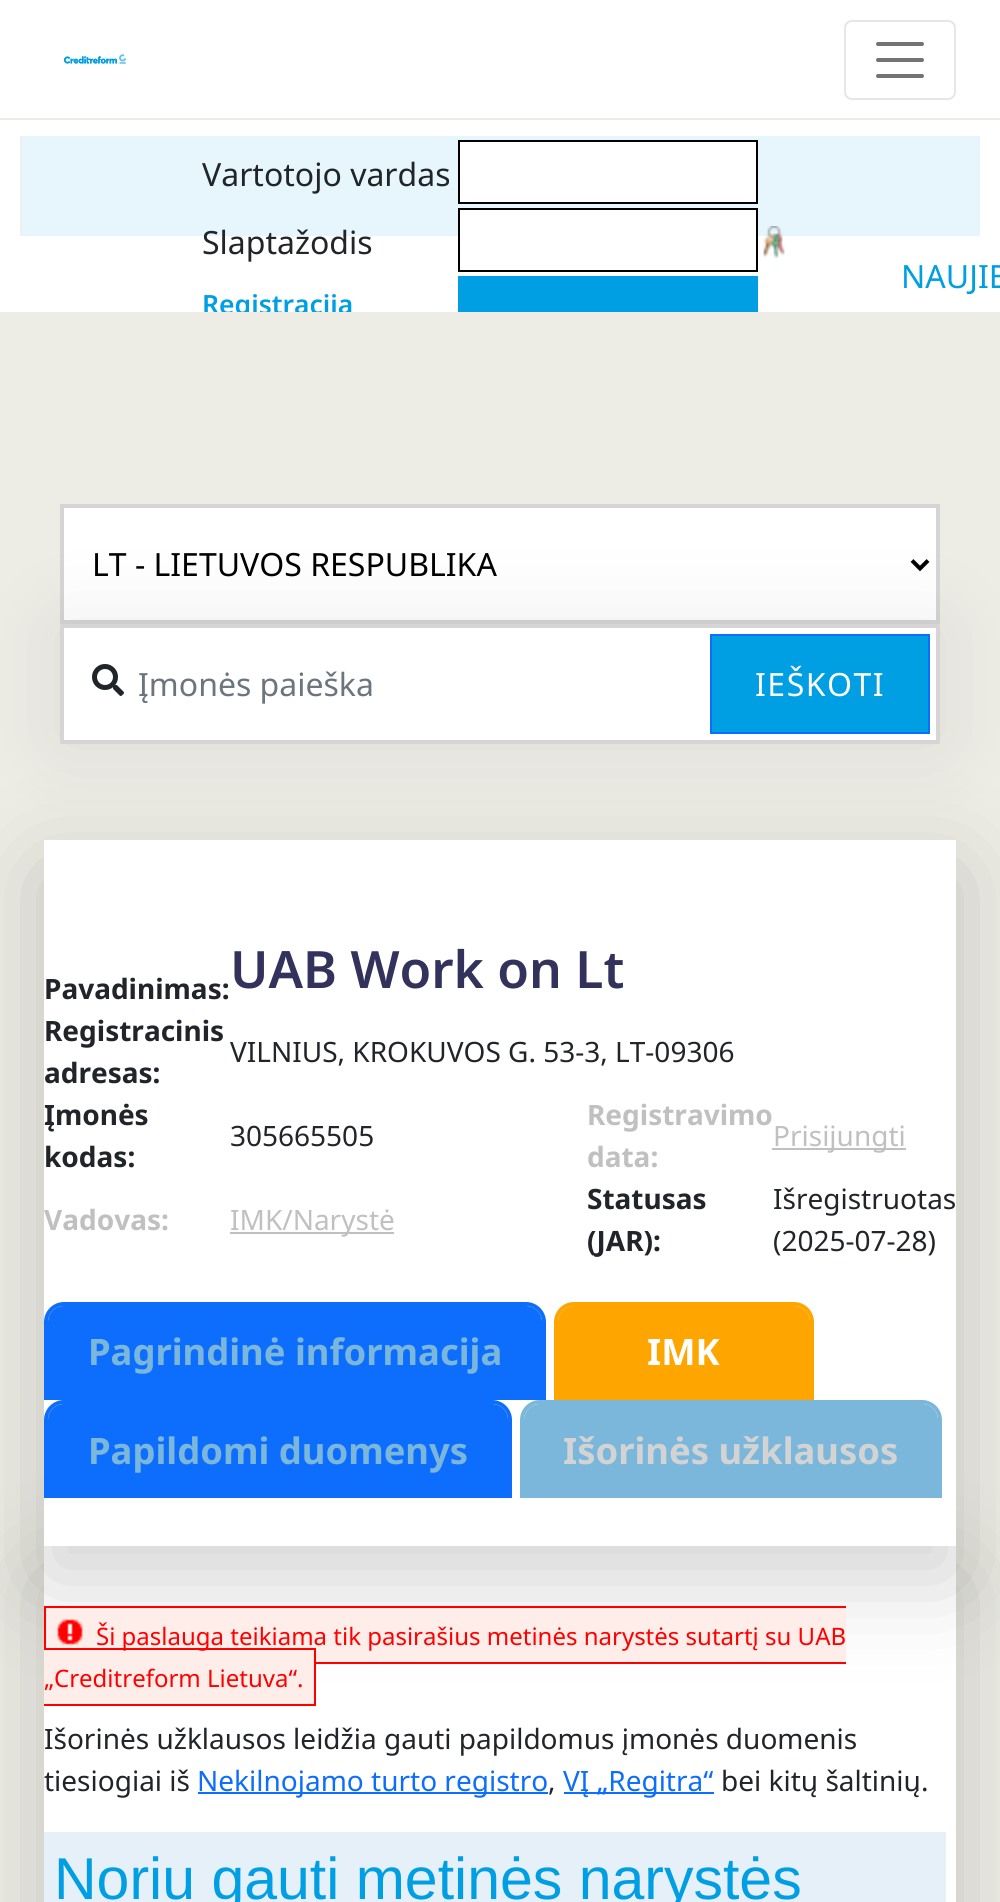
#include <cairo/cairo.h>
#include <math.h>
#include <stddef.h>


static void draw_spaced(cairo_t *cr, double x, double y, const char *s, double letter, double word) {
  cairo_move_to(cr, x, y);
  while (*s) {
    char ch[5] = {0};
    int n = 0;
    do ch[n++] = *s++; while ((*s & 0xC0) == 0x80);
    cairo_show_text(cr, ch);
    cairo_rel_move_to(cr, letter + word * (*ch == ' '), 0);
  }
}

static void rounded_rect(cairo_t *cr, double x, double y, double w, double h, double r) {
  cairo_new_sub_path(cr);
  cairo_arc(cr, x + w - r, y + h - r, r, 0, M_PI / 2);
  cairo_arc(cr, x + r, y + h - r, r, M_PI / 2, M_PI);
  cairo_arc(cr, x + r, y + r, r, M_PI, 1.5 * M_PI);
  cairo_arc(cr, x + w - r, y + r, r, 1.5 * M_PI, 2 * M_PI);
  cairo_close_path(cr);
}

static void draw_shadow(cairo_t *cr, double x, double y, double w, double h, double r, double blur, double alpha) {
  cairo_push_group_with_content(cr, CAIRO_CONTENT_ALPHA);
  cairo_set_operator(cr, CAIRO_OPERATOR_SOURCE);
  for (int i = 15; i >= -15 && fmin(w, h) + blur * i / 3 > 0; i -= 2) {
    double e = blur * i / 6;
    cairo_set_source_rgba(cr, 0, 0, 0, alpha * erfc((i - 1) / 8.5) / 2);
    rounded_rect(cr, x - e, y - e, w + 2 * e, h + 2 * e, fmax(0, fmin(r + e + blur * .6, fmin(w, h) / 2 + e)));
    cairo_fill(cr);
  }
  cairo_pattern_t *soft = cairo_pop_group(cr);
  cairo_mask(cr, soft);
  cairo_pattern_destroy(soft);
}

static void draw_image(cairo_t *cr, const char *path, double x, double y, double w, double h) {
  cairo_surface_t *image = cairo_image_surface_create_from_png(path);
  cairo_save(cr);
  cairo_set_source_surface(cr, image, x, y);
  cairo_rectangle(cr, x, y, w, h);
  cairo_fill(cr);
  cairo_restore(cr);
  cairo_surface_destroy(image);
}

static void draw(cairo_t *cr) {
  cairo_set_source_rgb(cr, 1, 1, 1);
  cairo_paint(cr);
  cairo_set_source_rgb(cr, 237 / 255.0, 236 / 255.0, 229 / 255.0);
  cairo_rectangle(cr, 0, 118, 1000, 2);
  cairo_fill(cr);
  draw_image(cr, "images/1.png", 64, 54, 62, 10);
  rounded_rect(cr, 845, 21, 110, 78, 7);
  cairo_set_source_rgb(cr, 230 / 255.0, 230 / 255.0, 230 / 255.0);
  cairo_stroke(cr);
  cairo_new_path(cr);
  cairo_move_to(cr, 878, 44);
  cairo_line_to(cr, 922, 44);
  cairo_move_to(cr, 878, 60);
  cairo_line_to(cr, 922, 60);
  cairo_move_to(cr, 878, 76);
  cairo_line_to(cr, 922, 76);
  cairo_set_source_rgb(cr, 115 / 255.0, 115 / 255.0, 115 / 255.0);
  cairo_set_line_width(cr, 4);
  cairo_set_line_cap(cr, CAIRO_LINE_CAP_ROUND);
  cairo_stroke(cr);
  cairo_set_source_rgb(cr, 230 / 255.0, 246 / 255.0, 252 / 255.0);
  cairo_rectangle(cr, 22, 136, 958, 100);
  cairo_fill(cr);
  cairo_set_source_rgb(cr, 239 / 255.0, 239 / 255.0, 239 / 255.0);
  cairo_rectangle(cr, 20, 136, 2, 100);
  cairo_fill(cr);
  cairo_set_source_rgb(cr, 1, 1, 1);
  cairo_rectangle(cr, 459, 141, 298, 62);
  cairo_fill_preserve(cr);
  cairo_set_source_rgb(cr, 0, 0, 0);
  cairo_set_line_width(cr, 2);
  cairo_set_line_cap(cr, CAIRO_LINE_CAP_BUTT);
  cairo_stroke(cr);
  cairo_set_source_rgb(cr, 1, 1, 1);
  cairo_rectangle(cr, 460, 210, 296, 26);
  cairo_fill(cr);
  cairo_rectangle(cr, 459, 209, 298, 62);
  cairo_set_source_rgb(cr, 0, 0, 0);
  cairo_stroke(cr);
  draw_image(cr, "images/2.png", 763, 226, 22, 32);
  cairo_set_source_rgb(cr, 0, 158 / 255.0, 227 / 255.0);
  cairo_rectangle(cr, 458, 276, 300, 36);
  cairo_fill(cr);
  cairo_select_font_face(cr, "Noto Sans", CAIRO_FONT_SLANT_NORMAL, CAIRO_FONT_WEIGHT_NORMAL);
  cairo_set_font_size(cr, 32);
  cairo_set_source_rgb(cr, 33 / 255.0, 37 / 255.0, 41 / 255.0);
  cairo_move_to(cr, 202, 186);
  cairo_show_text(cr, "Vartotojo vardas");
  cairo_move_to(cr, 202, 254);
  cairo_show_text(cr, "Slaptažodis");
  cairo_select_font_face(cr, "Noto Sans SemiBold", CAIRO_FONT_SLANT_NORMAL, CAIRO_FONT_WEIGHT_NORMAL);
  cairo_set_font_size(cr, 26.5);
  cairo_set_source_rgb(cr, 0, 158 / 255.0, 227 / 255.0);
  cairo_move_to(cr, 202, 314);
  cairo_show_text(cr, "Registracija");
  cairo_select_font_face(cr, "Noto Sans", CAIRO_FONT_SLANT_NORMAL, CAIRO_FONT_WEIGHT_NORMAL);
  cairo_set_font_size(cr, 32);
  cairo_move_to(cr, 901, 288);
  cairo_show_text(cr, "NAUJIE");
  cairo_set_source_rgb(cr, 237 / 255.0, 236 / 255.0, 229 / 255.0);
  cairo_rectangle(cr, 0, 312, 1000, 1590);
  cairo_fill(cr);
  cairo_set_source_rgb(cr, 1, 1, 1);
  cairo_rectangle(cr, 62, 506, 876, 116);
  cairo_fill_preserve(cr);
  cairo_set_source_rgb(cr, 214 / 255.0, 212 / 255.0, 212 / 255.0);
  cairo_set_line_width(cr, 4);
  cairo_stroke(cr);
  cairo_new_path(cr);
  cairo_move_to(cr, 912, 560.5);
  cairo_line_to(cr, 920, 568.5);
  cairo_line_to(cr, 928, 560.5);
  cairo_set_source_rgb(cr, 0, 0, 0);
  cairo_stroke(cr);
  cairo_move_to(cr, 92, 576);
  cairo_show_text(cr, "LT - LIETUVOS RESPUBLIKA");
  cairo_set_source_rgb(cr, 0, 0, 0);
  draw_shadow(cr, 44, 1578, 912, 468, 0, 48, 0.18);
  cairo_set_source_rgb(cr, 1, 1, 1);
  cairo_rectangle(cr, 44, 1546, 912, 356);
  cairo_fill(cr);
  cairo_set_source_rgb(cr, 0, 0, 0);
  draw_shadow(cr, 44, 872, 912, 706, 0, 48, 0.18);
  cairo_set_source_rgb(cr, 1, 1, 1);
  cairo_rectangle(cr, 44, 840, 912, 706);
  cairo_fill(cr);
  cairo_set_source_rgb(cr, 51 / 255.0, 51 / 255.0, 51 / 255.0);
  draw_shadow(cr, 60, 624, 880, 120, 0, 40, 0.1);
  cairo_set_source_rgb(cr, 1, 1, 1);
  cairo_rectangle(cr, 62, 626, 876, 116);
  cairo_fill_preserve(cr);
  cairo_set_source_rgb(cr, 214 / 255.0, 212 / 255.0, 212 / 255.0);
  cairo_stroke(cr);
  cairo_set_source_rgb(cr, 0, 158 / 255.0, 227 / 255.0);
  cairo_rectangle(cr, 711, 635, 218, 98);
  cairo_fill_preserve(cr);
  cairo_set_source_rgb(cr, 13 / 255.0, 110 / 255.0, 253 / 255.0);
  cairo_set_line_width(cr, 2);
  cairo_stroke(cr);
  cairo_set_source_rgb(cr, 1, 1, 1);
  draw_spaced(cr, 755, 696, "IEŠKOTI", 1.5, 0);
  draw_image(cr, "images/3.png", 92, 664, 32, 32);
  cairo_set_source_rgb(cr, 108 / 255.0, 117 / 255.0, 125 / 255.0);
  cairo_move_to(cr, 138, 696);
  cairo_show_text(cr, "Įmonės paieška");
  cairo_set_source_rgb(cr, 122 / 255.0, 183 / 255.0, 218 / 255.0);
  cairo_new_path(cr);
  cairo_move_to(cr, 540, 1404);
  cairo_line_to(cr, 922, 1404);
  cairo_curve_to(cr, 931, 1404, 938, 1411, 938, 1420);
  cairo_line_to(cr, 938, 1498);
  cairo_line_to(cr, 524, 1498);
  cairo_line_to(cr, 524, 1420);
  cairo_curve_to(cr, 524, 1411, 531, 1404, 540, 1404);
  cairo_close_path(cr);
  cairo_fill(cr);
  cairo_set_fill_rule(cr, CAIRO_FILL_RULE_EVEN_ODD);
  cairo_new_path(cr);
  cairo_move_to(cr, 540, 1400);
  cairo_line_to(cr, 922, 1400);
  cairo_curve_to(cr, 933, 1400, 942, 1409, 942, 1420);
  cairo_line_to(cr, 942, 1498);
  cairo_line_to(cr, 520, 1498);
  cairo_line_to(cr, 520, 1420);
  cairo_curve_to(cr, 520, 1409, 529, 1400, 540, 1400);
  cairo_close_path(cr);
  cairo_move_to(cr, 540, 1404);
  cairo_line_to(cr, 922, 1404);
  cairo_curve_to(cr, 931, 1404, 938, 1411, 938, 1420);
  cairo_line_to(cr, 938, 1498);
  cairo_line_to(cr, 524, 1498);
  cairo_line_to(cr, 524, 1420);
  cairo_curve_to(cr, 524, 1411, 531, 1404, 540, 1404);
  cairo_close_path(cr);
  cairo_fill(cr);
  cairo_select_font_face(cr, "Noto Sans", CAIRO_FONT_SLANT_NORMAL, CAIRO_FONT_WEIGHT_BOLD);
  cairo_set_font_size(cr, 36.4);
  cairo_set_source_rgb(cr, 211 / 255.0, 211 / 255.0, 211 / 255.0);
  cairo_move_to(cr, 563, 1464);
  cairo_show_text(cr, "Išorinės užklausos");
  cairo_set_source_rgb(cr, 13 / 255.0, 110 / 255.0, 253 / 255.0);
  cairo_new_path(cr);
  cairo_move_to(cr, 64, 1404);
  cairo_line_to(cr, 492, 1404);
  cairo_curve_to(cr, 501, 1404, 508, 1411, 508, 1420);
  cairo_line_to(cr, 508, 1498);
  cairo_line_to(cr, 48, 1498);
  cairo_line_to(cr, 48, 1420);
  cairo_curve_to(cr, 48, 1411, 55, 1404, 64, 1404);
  cairo_close_path(cr);
  cairo_fill(cr);
  cairo_new_path(cr);
  cairo_move_to(cr, 64, 1400);
  cairo_line_to(cr, 492, 1400);
  cairo_curve_to(cr, 503, 1400, 512, 1409, 512, 1420);
  cairo_line_to(cr, 512, 1498);
  cairo_line_to(cr, 44, 1498);
  cairo_line_to(cr, 44, 1420);
  cairo_curve_to(cr, 44, 1409, 53, 1400, 64, 1400);
  cairo_close_path(cr);
  cairo_move_to(cr, 64, 1404);
  cairo_line_to(cr, 492, 1404);
  cairo_curve_to(cr, 501, 1404, 508, 1411, 508, 1420);
  cairo_line_to(cr, 508, 1498);
  cairo_line_to(cr, 48, 1498);
  cairo_line_to(cr, 48, 1420);
  cairo_curve_to(cr, 48, 1411, 55, 1404, 64, 1404);
  cairo_close_path(cr);
  cairo_fill(cr);
  cairo_set_source_rgb(cr, 122 / 255.0, 183 / 255.0, 218 / 255.0);
  cairo_move_to(cr, 88, 1464);
  cairo_show_text(cr, "Papildomi duomenys");
  cairo_set_source_rgb(cr, 1, 165 / 255.0, 0);
  cairo_new_path(cr);
  cairo_move_to(cr, 574, 1306);
  cairo_line_to(cr, 794, 1306);
  cairo_curve_to(cr, 803, 1306, 810, 1313, 810, 1322);
  cairo_line_to(cr, 810, 1400);
  cairo_line_to(cr, 558, 1400);
  cairo_line_to(cr, 558, 1322);
  cairo_curve_to(cr, 558, 1313, 565, 1306, 574, 1306);
  cairo_close_path(cr);
  cairo_fill(cr);
  cairo_new_path(cr);
  cairo_move_to(cr, 574, 1302);
  cairo_line_to(cr, 794, 1302);
  cairo_curve_to(cr, 805, 1302, 814, 1311, 814, 1322);
  cairo_line_to(cr, 814, 1400);
  cairo_line_to(cr, 554, 1400);
  cairo_line_to(cr, 554, 1322);
  cairo_curve_to(cr, 554, 1311, 563, 1302, 574, 1302);
  cairo_close_path(cr);
  cairo_move_to(cr, 574, 1306);
  cairo_line_to(cr, 794, 1306);
  cairo_curve_to(cr, 803, 1306, 810, 1313, 810, 1322);
  cairo_line_to(cr, 810, 1400);
  cairo_line_to(cr, 558, 1400);
  cairo_line_to(cr, 558, 1322);
  cairo_curve_to(cr, 558, 1313, 565, 1306, 574, 1306);
  cairo_close_path(cr);
  cairo_fill(cr);
  cairo_set_source_rgb(cr, 1, 1, 1);
  cairo_move_to(cr, 647, 1365);
  cairo_show_text(cr, "IMK");
  cairo_set_source_rgb(cr, 13 / 255.0, 110 / 255.0, 253 / 255.0);
  cairo_new_path(cr);
  cairo_move_to(cr, 64, 1306);
  cairo_line_to(cr, 526, 1306);
  cairo_curve_to(cr, 535, 1306, 542, 1313, 542, 1322);
  cairo_line_to(cr, 542, 1400);
  cairo_line_to(cr, 48, 1400);
  cairo_line_to(cr, 48, 1322);
  cairo_curve_to(cr, 48, 1313, 55, 1306, 64, 1306);
  cairo_close_path(cr);
  cairo_fill(cr);
  cairo_new_path(cr);
  cairo_move_to(cr, 64, 1302);
  cairo_line_to(cr, 526, 1302);
  cairo_curve_to(cr, 537, 1302, 546, 1311, 546, 1322);
  cairo_line_to(cr, 546, 1400);
  cairo_line_to(cr, 44, 1400);
  cairo_line_to(cr, 44, 1322);
  cairo_curve_to(cr, 44, 1311, 53, 1302, 64, 1302);
  cairo_close_path(cr);
  cairo_move_to(cr, 64, 1306);
  cairo_line_to(cr, 526, 1306);
  cairo_curve_to(cr, 535, 1306, 542, 1313, 542, 1322);
  cairo_line_to(cr, 542, 1400);
  cairo_line_to(cr, 48, 1400);
  cairo_line_to(cr, 48, 1322);
  cairo_curve_to(cr, 48, 1313, 55, 1306, 64, 1306);
  cairo_close_path(cr);
  cairo_fill(cr);
  cairo_set_source_rgb(cr, 122 / 255.0, 183 / 255.0, 218 / 255.0);
  cairo_move_to(cr, 88, 1365);
  cairo_show_text(cr, "Pagrindinė informacija");
  cairo_select_font_face(cr, "Noto Sans", CAIRO_FONT_SLANT_NORMAL, CAIRO_FONT_WEIGHT_NORMAL);
  cairo_set_font_size(cr, 28);
  cairo_set_source_rgb(cr, 33 / 255.0, 37 / 255.0, 41 / 255.0);
  cairo_move_to(cr, 773, 1251);
  cairo_show_text(cr, "(2025-07-28)");
  cairo_move_to(cr, 773, 1209);
  cairo_show_text(cr, "Išregistruotas");
  cairo_select_font_face(cr, "Noto Sans", CAIRO_FONT_SLANT_NORMAL, CAIRO_FONT_WEIGHT_BOLD);
  cairo_move_to(cr, 587, 1251);
  cairo_show_text(cr, "(JAR):");
  cairo_move_to(cr, 587, 1209);
  cairo_show_text(cr, "Statusas");
  cairo_set_source_rgb(cr, 192 / 255.0, 192 / 255.0, 192 / 255.0);
  cairo_rectangle(cr, 230, 1232, 164, 2);
  cairo_fill(cr);
  cairo_select_font_face(cr, "Noto Sans", CAIRO_FONT_SLANT_NORMAL, CAIRO_FONT_WEIGHT_NORMAL);
  cairo_move_to(cr, 230, 1230);
  cairo_show_text(cr, "IMK/Narystė");
  cairo_select_font_face(cr, "Noto Sans", CAIRO_FONT_SLANT_NORMAL, CAIRO_FONT_WEIGHT_BOLD);
  cairo_move_to(cr, 44, 1230);
  cairo_show_text(cr, "Vadovas:");
  cairo_rectangle(cr, 772, 1148, 134, 2);
  cairo_fill(cr);
  cairo_select_font_face(cr, "Noto Sans", CAIRO_FONT_SLANT_NORMAL, CAIRO_FONT_WEIGHT_NORMAL);
  cairo_move_to(cr, 773, 1146);
  cairo_show_text(cr, "Prisijungti");
  cairo_select_font_face(cr, "Noto Sans", CAIRO_FONT_SLANT_NORMAL, CAIRO_FONT_WEIGHT_BOLD);
  cairo_move_to(cr, 587, 1167);
  cairo_show_text(cr, "data:");
  cairo_move_to(cr, 587, 1125);
  cairo_show_text(cr, "Registravimo");
  cairo_select_font_face(cr, "Noto Sans", CAIRO_FONT_SLANT_NORMAL, CAIRO_FONT_WEIGHT_NORMAL);
  cairo_set_source_rgb(cr, 33 / 255.0, 37 / 255.0, 41 / 255.0);
  cairo_move_to(cr, 230, 1146);
  cairo_show_text(cr, "305665505");
  cairo_select_font_face(cr, "Noto Sans", CAIRO_FONT_SLANT_NORMAL, CAIRO_FONT_WEIGHT_BOLD);
  cairo_move_to(cr, 44, 1167);
  cairo_show_text(cr, "kodas:");
  cairo_move_to(cr, 44, 1125);
  cairo_show_text(cr, "Įmonės");
  cairo_select_font_face(cr, "Noto Sans", CAIRO_FONT_SLANT_NORMAL, CAIRO_FONT_WEIGHT_NORMAL);
  cairo_move_to(cr, 230, 1062);
  cairo_show_text(cr, "VILNIUS, KROKUVOS G. 53-3, LT-09306");
  cairo_select_font_face(cr, "Noto Sans", CAIRO_FONT_SLANT_NORMAL, CAIRO_FONT_WEIGHT_BOLD);
  cairo_move_to(cr, 44, 1083);
  cairo_show_text(cr, "adresas:");
  cairo_move_to(cr, 44, 1041);
  cairo_show_text(cr, "Registracinis");
  cairo_select_font_face(cr, "Noto Sans SemiBold", CAIRO_FONT_SLANT_NORMAL, CAIRO_FONT_WEIGHT_NORMAL);
  cairo_set_font_size(cr, 51.5);
  cairo_set_source_rgb(cr, 50 / 255.0, 50 / 255.0, 93 / 255.0);
  cairo_move_to(cr, 230, 988);
  cairo_show_text(cr, "UAB Work on Lt");
  cairo_select_font_face(cr, "Noto Sans", CAIRO_FONT_SLANT_NORMAL, CAIRO_FONT_WEIGHT_BOLD);
  cairo_set_font_size(cr, 28);
  cairo_set_source_rgb(cr, 33 / 255.0, 37 / 255.0, 41 / 255.0);
  cairo_move_to(cr, 44, 999);
  cairo_show_text(cr, "Pavadinimas:");
  cairo_set_source_rgb(cr, 1, 237 / 255.0, 233 / 255.0);
  cairo_rectangle(cr, 46, 1608, 800, 54);
  cairo_fill(cr);
  draw_image(cr, "images/4.png", 57, 1619, 26, 26);
  cairo_set_source_rgb(cr, 1, 0, 0);
  cairo_rectangle(cr, 44, 1606, 802, 2);
  cairo_fill(cr);
  cairo_rectangle(cr, 44, 1606, 2, 42);
  cairo_fill(cr);
  cairo_rectangle(cr, 44, 1648, 272, 2);
  cairo_fill(cr);
  cairo_rectangle(cr, 316, 1662, 530, 2);
  cairo_fill(cr);
  cairo_set_source_rgb(cr, 1, 237 / 255.0, 233 / 255.0);
  cairo_rectangle(cr, 44, 1650, 270, 54);
  cairo_fill(cr);
  cairo_select_font_face(cr, "Noto Sans", CAIRO_FONT_SLANT_NORMAL, CAIRO_FONT_WEIGHT_NORMAL);
  cairo_set_font_size(cr, 24);
  cairo_set_source_rgb(cr, 1, 0, 0);
  cairo_move_to(cr, 44, 1687);
  cairo_show_text(cr, "„Creditreform Lietuva“.");
  cairo_rectangle(cr, 314, 1648, 2, 58);
  cairo_fill(cr);
  cairo_move_to(cr, 96, 1645);
  cairo_show_text(cr, "Ši paslauga teikiama tik pasirašius metinės narystės sutartį su UAB");
  cairo_rectangle(cr, 44, 1704, 272, 2);
  cairo_fill(cr);
  cairo_set_font_size(cr, 28);
  cairo_set_source_rgb(cr, 33 / 255.0, 37 / 255.0, 41 / 255.0);
  cairo_move_to(cr, 44, 1749);
  cairo_show_text(cr, "Išorinės užklausos leidžia gauti papildomus įmonės duomenis");
  cairo_move_to(cr, 44, 1791);
  cairo_show_text(cr, "tiesiogiai iš");
  cairo_set_source_rgb(cr, 13 / 255.0, 110 / 255.0, 253 / 255.0);
  cairo_rectangle(cr, 198, 1792, 350, 2);
  cairo_fill(cr);
  cairo_move_to(cr, 197, 1791);
  cairo_show_text(cr, "Nekilnojamo turto registro");
  cairo_set_source_rgb(cr, 33 / 255.0, 37 / 255.0, 41 / 255.0);
  cairo_move_to(cr, 548, 1791);
  cairo_show_text(cr, ",");
  cairo_set_source_rgb(cr, 13 / 255.0, 110 / 255.0, 253 / 255.0);
  cairo_rectangle(cr, 564, 1792, 150, 2);
  cairo_fill(cr);
  cairo_move_to(cr, 563, 1791);
  cairo_show_text(cr, "VĮ „Regitra“");
  cairo_set_source_rgb(cr, 33 / 255.0, 37 / 255.0, 41 / 255.0);
  cairo_move_to(cr, 721, 1791);
  cairo_show_text(cr, "bei kitų šaltinių.");
  cairo_set_source_rgb(cr, 230 / 255.0, 240 / 255.0, 249 / 255.0);
  cairo_rectangle(cr, 44, 1832, 902, 70);
  cairo_fill(cr);
  cairo_select_font_face(cr, "Liberation Sans", CAIRO_FONT_SLANT_NORMAL, CAIRO_FONT_WEIGHT_NORMAL);
  cairo_set_font_size(cr, 59);
  cairo_set_source_rgb(cr, 0, 158 / 255.0, 227 / 255.0);
  cairo_move_to(cr, 54, 1899);
  cairo_show_text(cr, "Noriu gauti metinės narystės");
}

int main(void) {
  cairo_surface_t *surface = cairo_image_surface_create(CAIRO_FORMAT_RGB24, 1000, 1902);
  cairo_t *cr = cairo_create(surface);
  cairo_font_options_t *options = cairo_font_options_create();
  cairo_font_options_set_hint_metrics(options, CAIRO_HINT_METRICS_OFF);
  cairo_font_options_set_hint_style(options, CAIRO_HINT_STYLE_NONE);
  cairo_set_font_options(cr, options);
  cairo_set_miter_limit(cr, 4);
  draw(cr);
  cairo_surface_write_to_png(surface, "out.png");
  cairo_font_options_destroy(options);
  cairo_destroy(cr);
  cairo_surface_destroy(surface);
  return 0;
}
